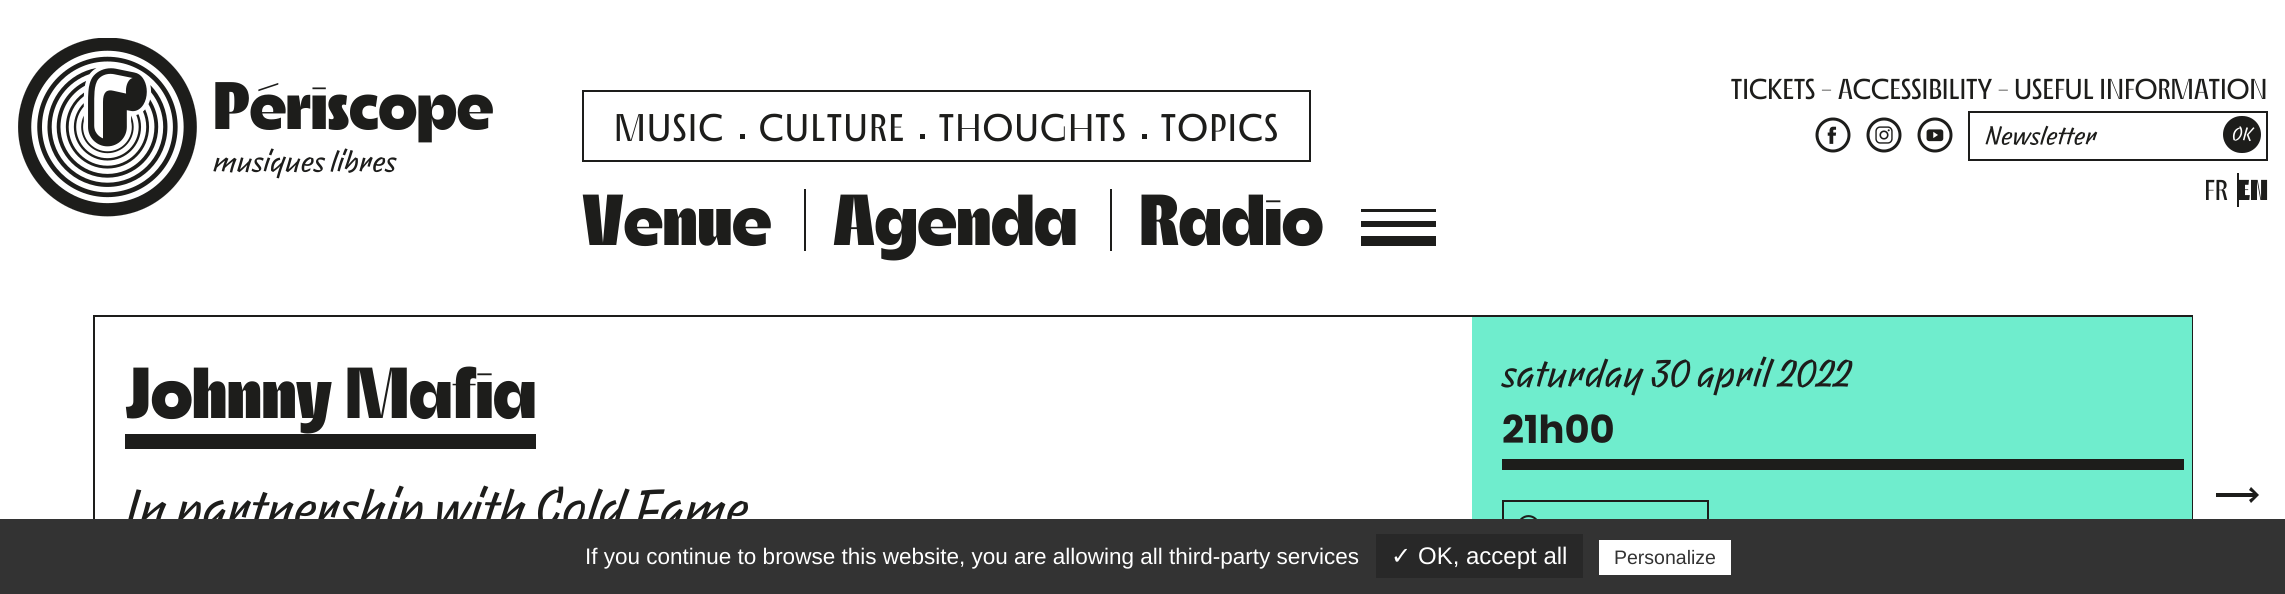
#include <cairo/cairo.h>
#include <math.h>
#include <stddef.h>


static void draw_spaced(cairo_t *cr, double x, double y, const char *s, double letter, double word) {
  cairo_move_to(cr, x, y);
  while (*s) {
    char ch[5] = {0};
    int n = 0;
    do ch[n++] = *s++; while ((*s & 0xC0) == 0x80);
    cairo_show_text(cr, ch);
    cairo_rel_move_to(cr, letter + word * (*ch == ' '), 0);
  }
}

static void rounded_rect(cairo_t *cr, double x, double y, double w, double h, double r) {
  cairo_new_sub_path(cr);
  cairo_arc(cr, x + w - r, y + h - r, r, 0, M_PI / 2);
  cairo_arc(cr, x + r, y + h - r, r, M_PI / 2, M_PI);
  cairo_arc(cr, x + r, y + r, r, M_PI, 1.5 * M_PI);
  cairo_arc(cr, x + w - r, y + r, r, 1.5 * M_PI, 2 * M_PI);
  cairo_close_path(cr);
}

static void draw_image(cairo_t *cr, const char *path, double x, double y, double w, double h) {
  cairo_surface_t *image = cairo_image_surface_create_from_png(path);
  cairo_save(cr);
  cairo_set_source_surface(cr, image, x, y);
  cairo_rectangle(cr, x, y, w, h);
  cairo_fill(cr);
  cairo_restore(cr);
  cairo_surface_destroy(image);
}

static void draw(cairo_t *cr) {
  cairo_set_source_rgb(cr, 1, 1, 1);
  cairo_paint(cr);
  draw_image(cr, "images/1.png", 18, 38, 179, 179);
  cairo_rectangle(cr, 583, 91, 727, 70);
  cairo_set_source_rgb(cr, 29 / 255.0, 29 / 255.0, 27 / 255.0);
  cairo_stroke(cr);
  cairo_rectangle(cr, 740, 134, 5, 5);
  cairo_fill(cr);
  cairo_rectangle(cr, 920, 134, 5, 5);
  cairo_fill(cr);
  cairo_rectangle(cr, 1142, 134, 5, 5);
  cairo_fill(cr);
  cairo_rectangle(cr, 804, 189, 2, 62);
  cairo_fill(cr);
  cairo_rectangle(cr, 1110, 189, 2, 62);
  cairo_fill(cr);
  cairo_rectangle(cr, 1361, 209, 75, 3);
  cairo_fill(cr);
  cairo_rectangle(cr, 1361, 221, 75, 6);
  cairo_fill(cr);
  cairo_rectangle(cr, 1361, 236, 75, 10);
  cairo_fill(cr);
  draw_image(cr, "images/2.png", 1815, 117, 36, 36);
  draw_image(cr, "images/3.png", 1866, 117, 36, 36);
  draw_image(cr, "images/4.png", 1917, 117, 36, 36);
  cairo_rectangle(cr, 1969, 112, 298, 48);
  cairo_stroke(cr);
  rounded_rect(cr, 2223, 116, 38, 37, 18.5);
  cairo_fill(cr);
  cairo_rectangle(cr, 2237, 173, 2, 34);
  cairo_fill(cr);
  cairo_rectangle(cr, 94, 316, 2098, 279);
  cairo_stroke(cr);
  cairo_rectangle(cr, 125, 434, 411, 15);
  cairo_fill(cr);
  cairo_set_source_rgb(cr, 111 / 255.0, 237 / 255.0, 205 / 255.0);
  cairo_rectangle(cr, 1472, 317, 720, 202);
  cairo_fill(cr);
  cairo_set_source_rgb(cr, 29 / 255.0, 29 / 255.0, 27 / 255.0);
  cairo_rectangle(cr, 1502, 459, 682, 11);
  cairo_fill(cr);
  cairo_rectangle(cr, 1503, 501, 205, 55);
  cairo_stroke(cr);
  draw_image(cr, "images/5.png", 1520, 515, 17, 4);
  cairo_new_path(cr);
  cairo_move_to(cr, 2251, 487);
  cairo_line_to(cr, 2249, 490);
  cairo_line_to(cr, 2253, 493);
  cairo_line_to(cr, 2216, 493);
  cairo_line_to(cr, 2216, 497);
  cairo_line_to(cr, 2253, 497);
  cairo_line_to(cr, 2249, 500);
  cairo_line_to(cr, 2251, 503);
  cairo_line_to(cr, 2259, 495);
  cairo_close_path(cr);
  cairo_fill(cr);
  cairo_select_font_face(cr, "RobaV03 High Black", CAIRO_FONT_SLANT_NORMAL, CAIRO_FONT_WEIGHT_NORMAL);
  cairo_set_font_size(cr, 67);
  cairo_move_to(cr, 213, 129);
  cairo_show_text(cr, "Périscope");
  cairo_select_font_face(cr, "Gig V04", CAIRO_FONT_SLANT_NORMAL, CAIRO_FONT_WEIGHT_NORMAL);
  cairo_set_font_size(cr, 27.5);
  cairo_move_to(cr, 213, 171);
  cairo_show_text(cr, "musiques libres");
  cairo_select_font_face(cr, "RobaV03 High Light", CAIRO_FONT_SLANT_NORMAL, CAIRO_FONT_WEIGHT_NORMAL);
  cairo_set_font_size(cr, 38.5);
  draw_spaced(cr, 614, 141, "MUSIC", 1.5, 0);
  draw_spaced(cr, 759, 141, "CULTURE", 1.5, 0);
  draw_spaced(cr, 939, 141, "THOUGHTS", 1.5, 0);
  draw_spaced(cr, 1161, 141, "TOPICS", 1.5, 0);
  cairo_select_font_face(cr, "RobaV03 High Black", CAIRO_FONT_SLANT_NORMAL, CAIRO_FONT_WEIGHT_NORMAL);
  cairo_set_font_size(cr, 72);
  cairo_move_to(cr, 582, 245);
  cairo_show_text(cr, "Venue");
  cairo_move_to(cr, 833, 245);
  cairo_show_text(cr, "Agenda");
  cairo_move_to(cr, 1139, 245);
  cairo_show_text(cr, "Radio");
  cairo_select_font_face(cr, "RobaV03 High Light", CAIRO_FONT_SLANT_NORMAL, CAIRO_FONT_WEIGHT_NORMAL);
  cairo_set_font_size(cr, 28.75);
  cairo_move_to(cr, 1731, 99);
  cairo_show_text(cr, "TICKETS -");
  cairo_move_to(cr, 1838, 99);
  cairo_show_text(cr, "ACCESSIBILITY -");
  cairo_move_to(cr, 2014, 99);
  cairo_show_text(cr, "USEFUL INFORMATION");
  cairo_select_font_face(cr, "Gig V04", CAIRO_FONT_SLANT_NORMAL, CAIRO_FONT_WEIGHT_NORMAL);
  cairo_set_font_size(cr, 24);
  cairo_move_to(cr, 1985, 144);
  cairo_show_text(cr, "Newsletter");
  cairo_set_font_size(cr, 17);
  cairo_set_source_rgb(cr, 1, 1, 1);
  cairo_move_to(cr, 2232, 140);
  cairo_show_text(cr, "OK");
  cairo_select_font_face(cr, "RobaV03 High Light", CAIRO_FONT_SLANT_NORMAL, CAIRO_FONT_WEIGHT_NORMAL);
  cairo_set_font_size(cr, 28.75);
  cairo_set_source_rgb(cr, 29 / 255.0, 29 / 255.0, 27 / 255.0);
  cairo_move_to(cr, 2204, 200);
  cairo_show_text(cr, "FR");
  cairo_select_font_face(cr, "RobaV03 High Black", CAIRO_FONT_SLANT_NORMAL, CAIRO_FONT_WEIGHT_NORMAL);
  cairo_move_to(cr, 2238, 200);
  cairo_show_text(cr, "EN");
  cairo_set_font_size(cr, 72);
  cairo_move_to(cr, 125, 418);
  cairo_show_text(cr, "Johnny Mafia");
  cairo_select_font_face(cr, "Gig V04", CAIRO_FONT_SLANT_NORMAL, CAIRO_FONT_WEIGHT_NORMAL);
  cairo_set_font_size(cr, 48);
  cairo_move_to(cr, 125, 525);
  cairo_show_text(cr, "In partnership with Cold Fame");
  cairo_set_font_size(cr, 36);
  cairo_move_to(cr, 1502, 386);
  cairo_show_text(cr, "saturday 30 april 2022");
  cairo_select_font_face(cr, "Poppins", CAIRO_FONT_SLANT_NORMAL, CAIRO_FONT_WEIGHT_BOLD);
  cairo_set_font_size(cr, 38.5);
  cairo_move_to(cr, 1502, 443);
  cairo_show_text(cr, "21h00");
  cairo_set_source_rgb(cr, 51 / 255.0, 51 / 255.0, 51 / 255.0);
  cairo_rectangle(cr, 0, 519, 2285, 75);
  cairo_fill(cr);
  cairo_select_font_face(cr, "Liberation Sans", CAIRO_FONT_SLANT_NORMAL, CAIRO_FONT_WEIGHT_NORMAL);
  cairo_set_font_size(cr, 22.5);
  cairo_set_source_rgb(cr, 1, 1, 1);
  cairo_move_to(cr, 585, 564);
  cairo_show_text(cr, "If you continue to browse this website, you are allowing all third-party services");
  cairo_set_source_rgb(cr, 40 / 255.0, 40 / 255.0, 40 / 255.0);
  cairo_rectangle(cr, 1376, 534, 207, 44);
  cairo_fill(cr);
  cairo_select_font_face(cr, "DejaVu Sans", CAIRO_FONT_SLANT_NORMAL, CAIRO_FONT_WEIGHT_NORMAL);
  cairo_set_font_size(cr, 24);
  cairo_set_source_rgb(cr, 1, 1, 1);
  cairo_move_to(cr, 1391, 564);
  cairo_show_text(cr, "✓");
  cairo_select_font_face(cr, "Liberation Sans", CAIRO_FONT_SLANT_NORMAL, CAIRO_FONT_WEIGHT_NORMAL);
  cairo_move_to(cr, 1418, 564);
  cairo_show_text(cr, "OK, accept all");
  cairo_rectangle(cr, 1599, 540, 132, 35);
  cairo_fill(cr);
  cairo_set_font_size(cr, 19.5);
  cairo_set_source_rgb(cr, 51 / 255.0, 51 / 255.0, 51 / 255.0);
  cairo_move_to(cr, 1614, 564);
  cairo_show_text(cr, "Personalize");
}

int main(void) {
  cairo_surface_t *surface = cairo_image_surface_create(CAIRO_FORMAT_RGB24, 2285, 594);
  cairo_t *cr = cairo_create(surface);
  cairo_font_options_t *options = cairo_font_options_create();
  cairo_font_options_set_hint_metrics(options, CAIRO_HINT_METRICS_OFF);
  cairo_font_options_set_hint_style(options, CAIRO_HINT_STYLE_NONE);
  cairo_set_font_options(cr, options);
  cairo_set_miter_limit(cr, 4);
  draw(cr);
  cairo_surface_write_to_png(surface, "out.png");
  cairo_font_options_destroy(options);
  cairo_destroy(cr);
  cairo_surface_destroy(surface);
  return 0;
}
